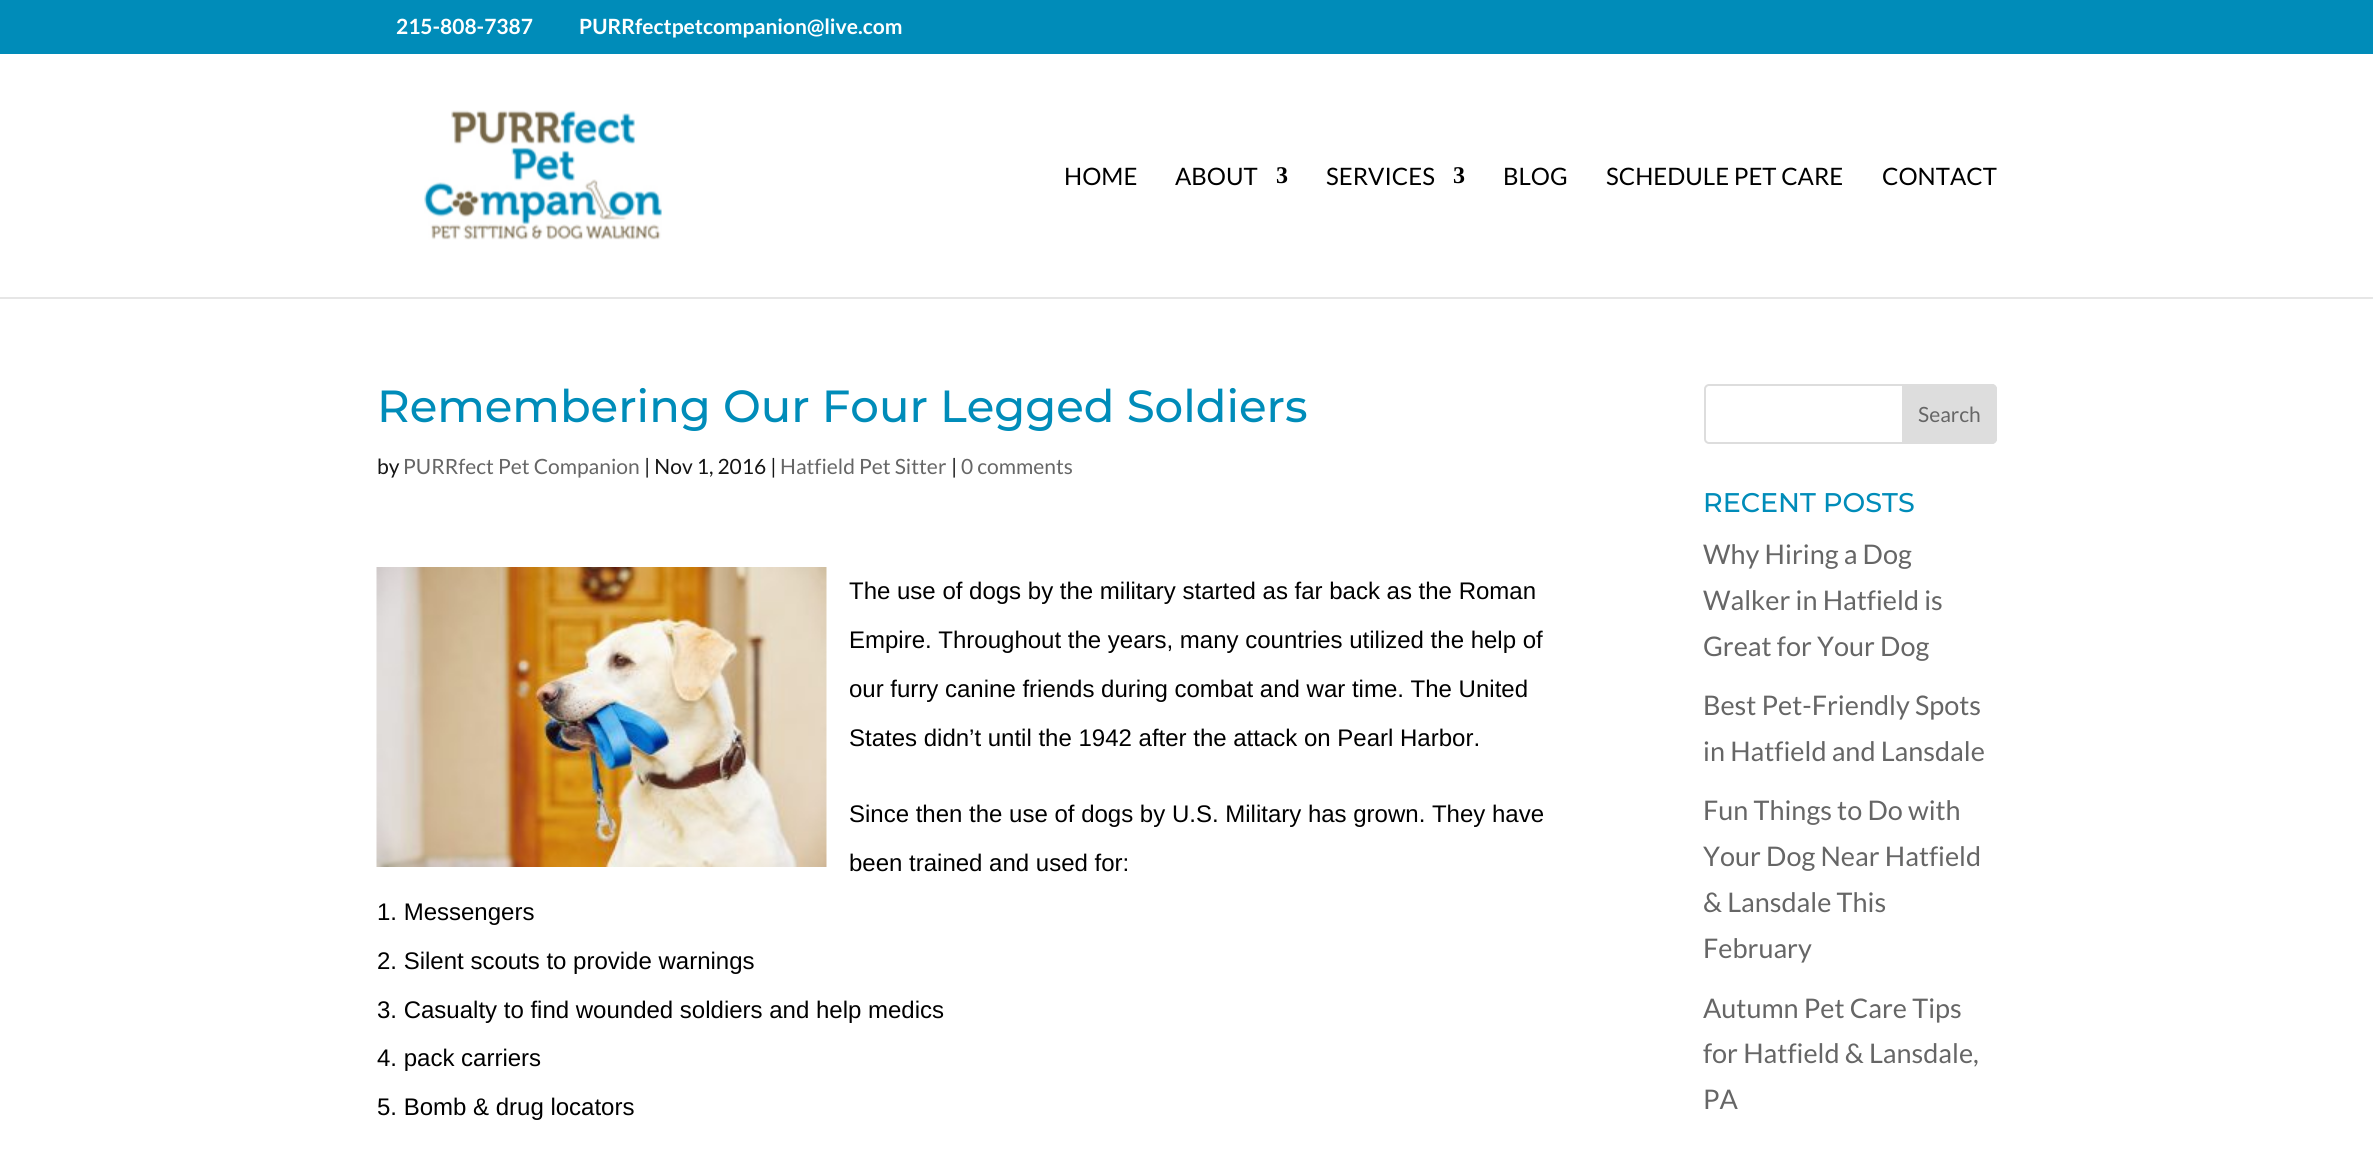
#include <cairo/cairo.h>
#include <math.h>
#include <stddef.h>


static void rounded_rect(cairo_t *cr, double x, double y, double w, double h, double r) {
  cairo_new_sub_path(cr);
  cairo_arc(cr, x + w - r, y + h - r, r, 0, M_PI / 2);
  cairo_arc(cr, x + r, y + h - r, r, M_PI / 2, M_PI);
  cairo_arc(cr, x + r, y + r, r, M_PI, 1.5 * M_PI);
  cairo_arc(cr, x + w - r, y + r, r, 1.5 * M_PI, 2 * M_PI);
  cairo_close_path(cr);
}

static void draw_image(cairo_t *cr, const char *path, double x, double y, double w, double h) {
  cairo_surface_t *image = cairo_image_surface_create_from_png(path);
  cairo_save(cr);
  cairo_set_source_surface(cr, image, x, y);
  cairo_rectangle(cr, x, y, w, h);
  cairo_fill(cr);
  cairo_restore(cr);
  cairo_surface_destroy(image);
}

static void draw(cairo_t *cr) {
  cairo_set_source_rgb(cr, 1, 1, 1);
  cairo_paint(cr);
  cairo_set_source_rgb(cr, 0, 140 / 255.0, 185 / 255.0);
  cairo_rectangle(cr, 0, 0, 2373, 54);
  cairo_fill(cr);
  cairo_set_source_rgb(cr, 230 / 255.0, 230 / 255.0, 230 / 255.0);
  cairo_rectangle(cr, 0, 297, 2373, 2);
  cairo_fill(cr);
  draw_image(cr, "images/1.png", 424, 110, 238, 130);
  draw_image(cr, "images/2.png", 376, 567, 451, 300);
  rounded_rect(cr, 1705, 385, 291, 58, 4);
  cairo_set_source_rgb(cr, 221 / 255.0, 221 / 255.0, 221 / 255.0);
  cairo_stroke(cr);
  cairo_new_path(cr);
  cairo_move_to(cr, 1903, 385);
  cairo_line_to(cr, 1992, 385);
  cairo_curve_to(cr, 1994, 385, 1996, 387, 1996, 389);
  cairo_line_to(cr, 1996, 439);
  cairo_curve_to(cr, 1996, 441, 1994, 443, 1992, 443);
  cairo_line_to(cr, 1903, 443);
  cairo_close_path(cr);
  cairo_fill_preserve(cr);
  cairo_stroke(cr);
  cairo_select_font_face(cr, "Lato", CAIRO_FONT_SLANT_NORMAL, CAIRO_FONT_WEIGHT_BOLD);
  cairo_set_font_size(cr, 21);
  cairo_set_source_rgb(cr, 1, 1, 1);
  cairo_move_to(cr, 396, 34);
  cairo_show_text(cr, "215-808-7387");
  cairo_move_to(cr, 579, 34);
  cairo_show_text(cr, "PURRfectpetcompanion@live.com");
  cairo_select_font_face(cr, "Lato", CAIRO_FONT_SLANT_NORMAL, CAIRO_FONT_WEIGHT_NORMAL);
  cairo_set_font_size(cr, 24);
  cairo_set_source_rgb(cr, 0, 0, 0);
  cairo_move_to(cr, 1064, 185);
  cairo_show_text(cr, "HOME");
  cairo_move_to(cr, 1175, 185);
  cairo_show_text(cr, "ABOUT");
  cairo_select_font_face(cr, "Liberation Serif", CAIRO_FONT_SLANT_NORMAL, CAIRO_FONT_WEIGHT_BOLD);
  cairo_move_to(cr, 1276, 183);
  cairo_show_text(cr, "3");
  cairo_select_font_face(cr, "Lato", CAIRO_FONT_SLANT_NORMAL, CAIRO_FONT_WEIGHT_NORMAL);
  cairo_move_to(cr, 1326, 185);
  cairo_show_text(cr, "SERVICES");
  cairo_select_font_face(cr, "Liberation Serif", CAIRO_FONT_SLANT_NORMAL, CAIRO_FONT_WEIGHT_BOLD);
  cairo_move_to(cr, 1453, 183);
  cairo_show_text(cr, "3");
  cairo_select_font_face(cr, "Lato", CAIRO_FONT_SLANT_NORMAL, CAIRO_FONT_WEIGHT_NORMAL);
  cairo_move_to(cr, 1503, 185);
  cairo_show_text(cr, "BLOG");
  cairo_move_to(cr, 1606, 185);
  cairo_show_text(cr, "SCHEDULE PET CARE");
  cairo_move_to(cr, 1882, 185);
  cairo_show_text(cr, "CONTACT");
  cairo_select_font_face(cr, "Montserrat Medium", CAIRO_FONT_SLANT_NORMAL, CAIRO_FONT_WEIGHT_NORMAL);
  cairo_set_font_size(cr, 45);
  cairo_set_source_rgb(cr, 0, 140 / 255.0, 185 / 255.0);
  cairo_move_to(cr, 377, 422);
  cairo_show_text(cr, "Remembering Our Four Legged Soldiers");
  cairo_select_font_face(cr, "Lato", CAIRO_FONT_SLANT_NORMAL, CAIRO_FONT_WEIGHT_NORMAL);
  cairo_set_font_size(cr, 21);
  cairo_set_source_rgb(cr, 21 / 255.0, 21 / 255.0, 21 / 255.0);
  cairo_move_to(cr, 377, 474);
  cairo_show_text(cr, "by");
  cairo_set_source_rgb(cr, 102 / 255.0, 102 / 255.0, 102 / 255.0);
  cairo_move_to(cr, 403, 474);
  cairo_show_text(cr, "PURRfect Pet Companion");
  cairo_set_source_rgb(cr, 21 / 255.0, 21 / 255.0, 21 / 255.0);
  cairo_move_to(cr, 644, 474);
  cairo_show_text(cr, "| Nov 1, 2016 |");
  cairo_set_source_rgb(cr, 102 / 255.0, 102 / 255.0, 102 / 255.0);
  cairo_move_to(cr, 780, 474);
  cairo_show_text(cr, "Hatfield Pet Sitter");
  cairo_set_source_rgb(cr, 21 / 255.0, 21 / 255.0, 21 / 255.0);
  cairo_move_to(cr, 951, 474);
  cairo_show_text(cr, "|");
  cairo_set_source_rgb(cr, 102 / 255.0, 102 / 255.0, 102 / 255.0);
  cairo_move_to(cr, 961, 474);
  cairo_show_text(cr, "0 comments");
  cairo_select_font_face(cr, "Liberation Sans", CAIRO_FONT_SLANT_NORMAL, CAIRO_FONT_WEIGHT_NORMAL);
  cairo_set_font_size(cr, 24);
  cairo_set_source_rgb(cr, 0, 0, 0);
  cairo_move_to(cr, 849, 599);
  cairo_show_text(cr, "The use of dogs by the military started as far back as the Roman");
  cairo_move_to(cr, 849, 648);
  cairo_show_text(cr, "Empire. Throughout the years, many countries utilized the help of");
  cairo_move_to(cr, 849, 697);
  cairo_show_text(cr, "our furry canine friends during combat and war time. The United");
  cairo_move_to(cr, 849, 746);
  cairo_show_text(cr, "States didn’t until the 1942 after the attack on Pearl Harbor.");
  cairo_move_to(cr, 849, 822);
  cairo_show_text(cr, "Since then the use of dogs by U.S. Military has grown. They have");
  cairo_move_to(cr, 849, 871);
  cairo_show_text(cr, "been trained and used for:");
  cairo_move_to(cr, 377, 920);
  cairo_show_text(cr, "1. Messengers");
  cairo_move_to(cr, 377, 969);
  cairo_show_text(cr, "2. Silent scouts to provide warnings");
  cairo_move_to(cr, 377, 1018);
  cairo_show_text(cr, "3. Casualty to find wounded soldiers and help medics");
  cairo_move_to(cr, 377, 1066);
  cairo_show_text(cr, "4. pack carriers");
  cairo_move_to(cr, 377, 1115);
  cairo_show_text(cr, "5. Bomb & drug locators");
  cairo_select_font_face(cr, "Lato", CAIRO_FONT_SLANT_NORMAL, CAIRO_FONT_WEIGHT_NORMAL);
  cairo_set_font_size(cr, 21);
  cairo_set_source_rgb(cr, 102 / 255.0, 102 / 255.0, 102 / 255.0);
  cairo_move_to(cr, 1918, 422);
  cairo_show_text(cr, "Search");
  cairo_select_font_face(cr, "Montserrat Medium", CAIRO_FONT_SLANT_NORMAL, CAIRO_FONT_WEIGHT_NORMAL);
  cairo_set_font_size(cr, 27);
  cairo_set_source_rgb(cr, 0, 140 / 255.0, 185 / 255.0);
  cairo_move_to(cr, 1703, 512);
  cairo_show_text(cr, "RECENT POSTS");
  cairo_select_font_face(cr, "Lato", CAIRO_FONT_SLANT_NORMAL, CAIRO_FONT_WEIGHT_NORMAL);
  cairo_set_source_rgb(cr, 102 / 255.0, 102 / 255.0, 102 / 255.0);
  cairo_move_to(cr, 1703, 564);
  cairo_show_text(cr, "Why Hiring a Dog");
  cairo_move_to(cr, 1703, 610);
  cairo_show_text(cr, "Walker in Hatfield is");
  cairo_move_to(cr, 1703, 656);
  cairo_show_text(cr, "Great for Your Dog");
  cairo_move_to(cr, 1703, 715);
  cairo_show_text(cr, "Best Pet-Friendly Spots");
  cairo_move_to(cr, 1703, 761);
  cairo_show_text(cr, "in Hatfield and Lansdale");
  cairo_move_to(cr, 1703, 820);
  cairo_show_text(cr, "Fun Things to Do with");
  cairo_move_to(cr, 1703, 866);
  cairo_show_text(cr, "Your Dog Near Hatfield");
  cairo_move_to(cr, 1703, 912);
  cairo_show_text(cr, "& Lansdale This");
  cairo_move_to(cr, 1703, 958);
  cairo_show_text(cr, "February");
  cairo_move_to(cr, 1703, 1018);
  cairo_show_text(cr, "Autumn Pet Care Tips");
  cairo_move_to(cr, 1703, 1063);
  cairo_show_text(cr, "for Hatfield & Lansdale,");
  cairo_move_to(cr, 1703, 1109);
  cairo_show_text(cr, "PA");
}

int main(void) {
  cairo_surface_t *surface = cairo_image_surface_create(CAIRO_FORMAT_RGB24, 2373, 1153);
  cairo_t *cr = cairo_create(surface);
  cairo_font_options_t *options = cairo_font_options_create();
  cairo_font_options_set_hint_metrics(options, CAIRO_HINT_METRICS_OFF);
  cairo_font_options_set_hint_style(options, CAIRO_HINT_STYLE_NONE);
  cairo_set_font_options(cr, options);
  cairo_set_miter_limit(cr, 4);
  draw(cr);
  cairo_surface_write_to_png(surface, "out.png");
  cairo_font_options_destroy(options);
  cairo_destroy(cr);
  cairo_surface_destroy(surface);
  return 0;
}
